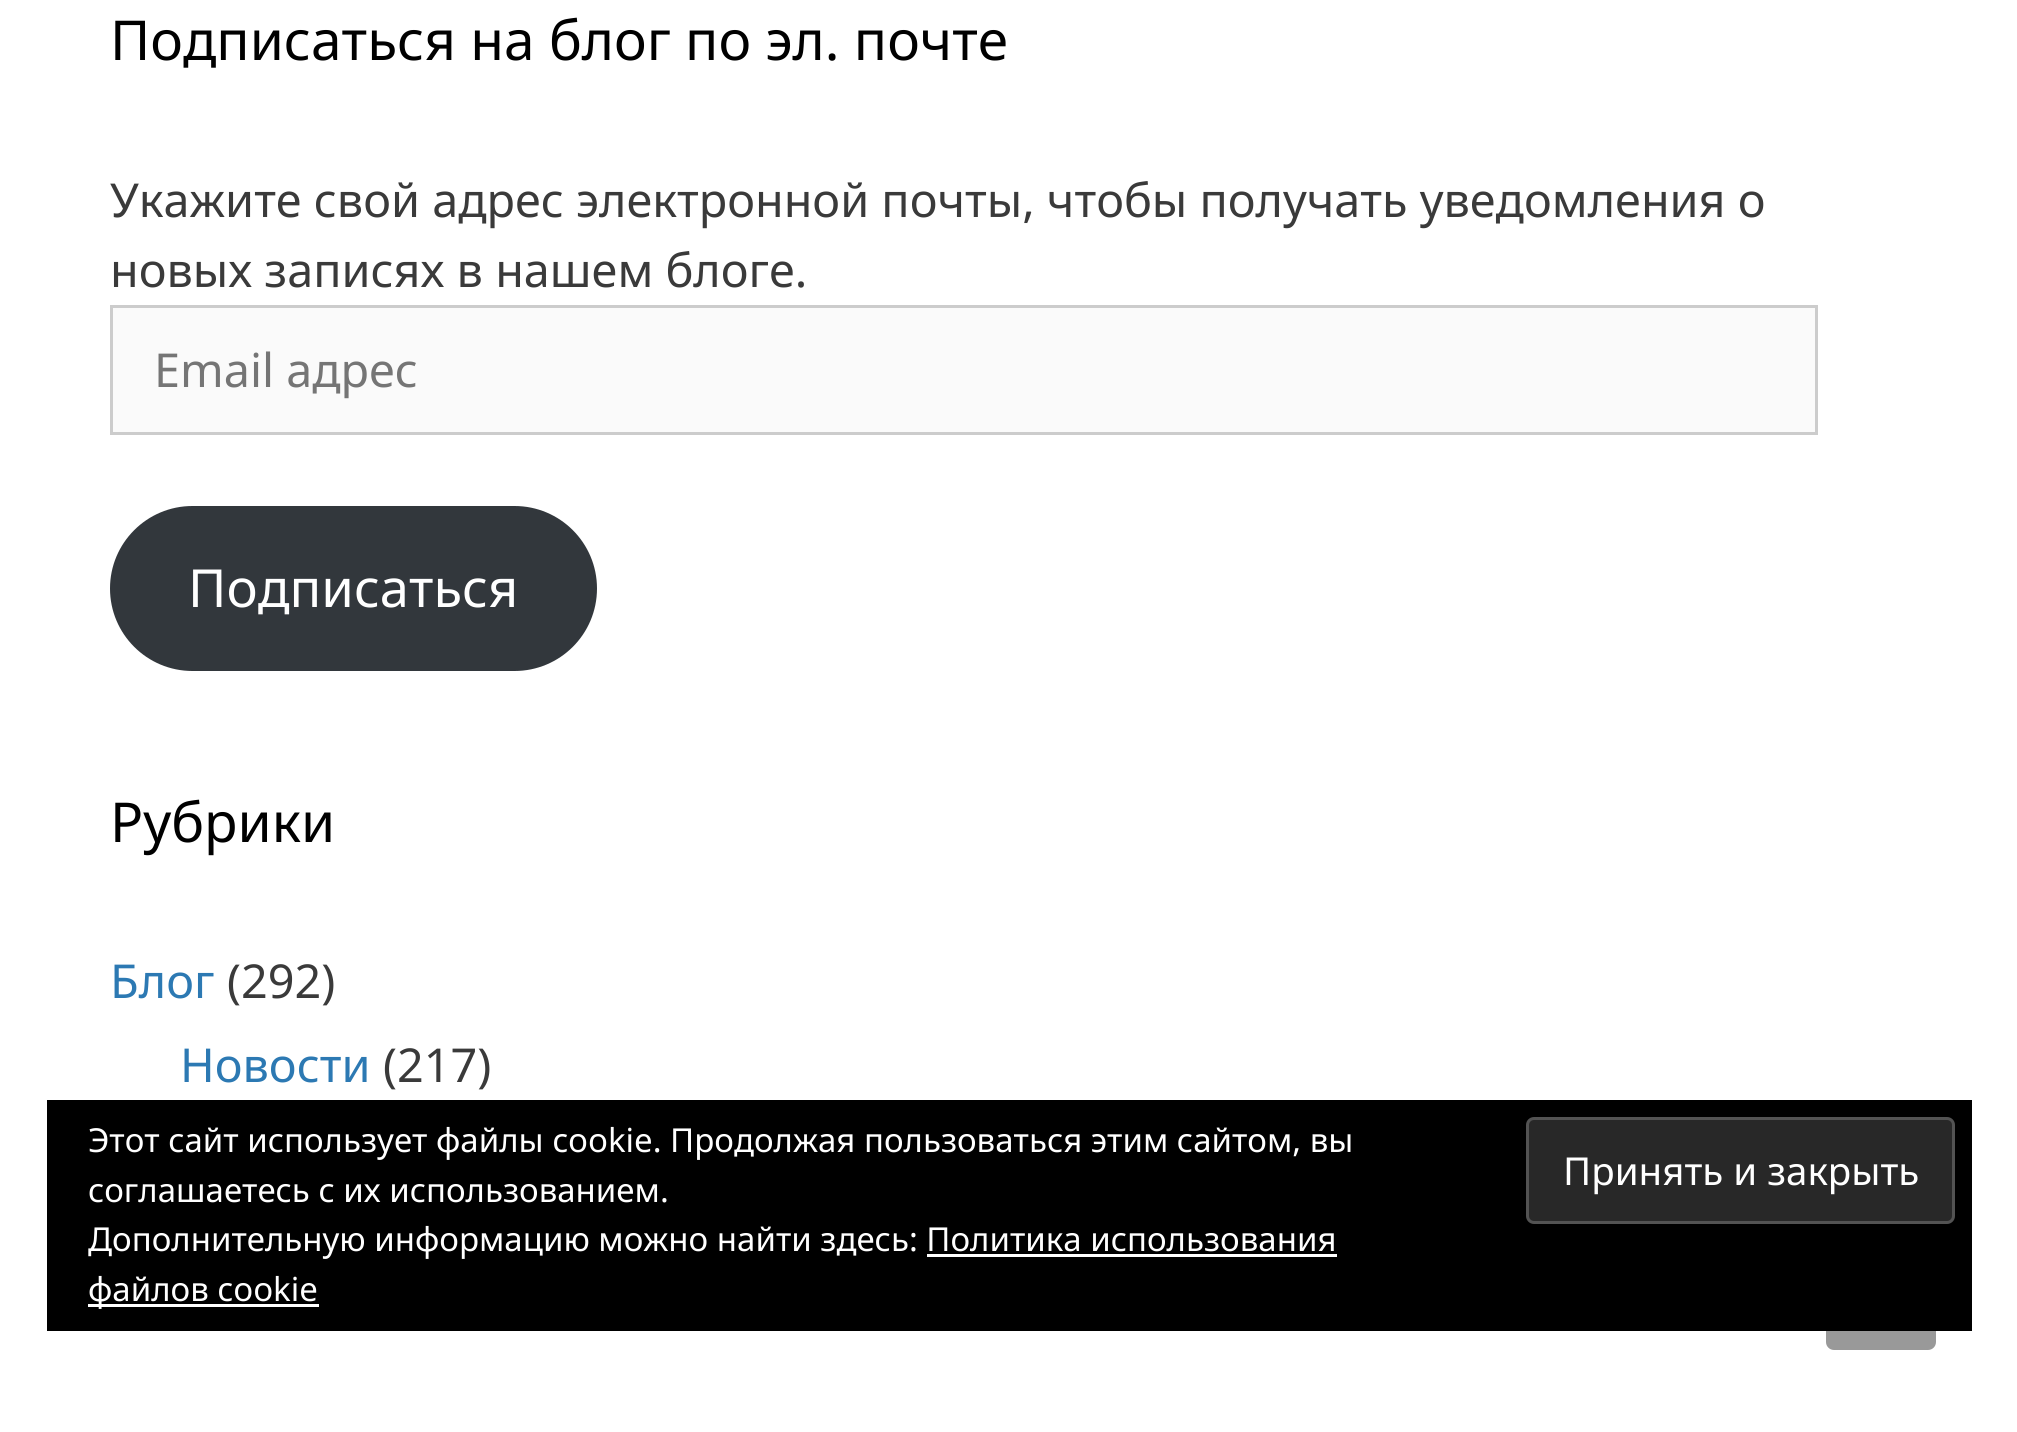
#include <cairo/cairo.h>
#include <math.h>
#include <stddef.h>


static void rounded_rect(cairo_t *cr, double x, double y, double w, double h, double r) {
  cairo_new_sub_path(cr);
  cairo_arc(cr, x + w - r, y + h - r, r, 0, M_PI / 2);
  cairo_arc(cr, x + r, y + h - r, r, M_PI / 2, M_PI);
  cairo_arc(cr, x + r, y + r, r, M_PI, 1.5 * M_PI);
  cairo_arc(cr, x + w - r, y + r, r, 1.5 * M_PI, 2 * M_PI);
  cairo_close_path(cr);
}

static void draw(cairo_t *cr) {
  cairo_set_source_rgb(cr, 1, 1, 1);
  cairo_paint(cr);
  cairo_set_source_rgb(cr, 250 / 255.0, 250 / 255.0, 250 / 255.0);
  cairo_rectangle(cr, 111.5, 306.5, 1705, 127);
  cairo_fill_preserve(cr);
  cairo_set_source_rgb(cr, 204 / 255.0, 204 / 255.0, 204 / 255.0);
  cairo_set_line_width(cr, 3);
  cairo_stroke(cr);
  cairo_set_source_rgb(cr, 50 / 255.0, 55 / 255.0, 60 / 255.0);
  rounded_rect(cr, 110, 506, 487, 165, 82.5);
  cairo_fill(cr);
  cairo_set_source_rgb(cr, 153 / 255.0, 153 / 255.0, 153 / 255.0);
  rounded_rect(cr, 1826, 1240, 110, 110, 8);
  cairo_fill(cr);
  cairo_set_source_rgb(cr, 0, 0, 0);
  cairo_rectangle(cr, 47, 1100, 1925, 231);
  cairo_fill(cr);
  cairo_set_source_rgb(cr, 40 / 255.0, 40 / 255.0, 40 / 255.0);
  rounded_rect(cr, 1527.5, 1118.5, 426, 104, 6.5);
  cairo_fill_preserve(cr);
  cairo_set_source_rgb(cr, 83 / 255.0, 83 / 255.0, 83 / 255.0);
  cairo_stroke(cr);
  cairo_set_source_rgb(cr, 1, 1, 1);
  cairo_rectangle(cr, 927, 1254, 410, 3);
  cairo_fill(cr);
  cairo_rectangle(cr, 88, 1304, 231, 3);
  cairo_fill(cr);
  cairo_select_font_face(cr, "Noto Sans", CAIRO_FONT_SLANT_NORMAL, CAIRO_FONT_WEIGHT_NORMAL);
  cairo_set_font_size(cr, 55);
  cairo_set_source_rgb(cr, 0, 0, 0);
  cairo_move_to(cr, 110, 60);
  cairo_show_text(cr, "Подписаться на блог по эл. почте");
  cairo_set_font_size(cr, 46.75);
  cairo_set_source_rgb(cr, 58 / 255.0, 58 / 255.0, 58 / 255.0);
  cairo_move_to(cr, 110, 217);
  cairo_show_text(cr, "Укажите свой адрес электронной почты, чтобы получать уведомления о");
  cairo_move_to(cr, 110, 287);
  cairo_show_text(cr, "новых записях в нашем блоге.");
  cairo_set_source_rgb(cr, 117 / 255.0, 117 / 255.0, 117 / 255.0);
  cairo_move_to(cr, 154, 387);
  cairo_show_text(cr, "Email адрес");
  cairo_set_font_size(cr, 52.5);
  cairo_set_source_rgb(cr, 1, 1, 1);
  cairo_move_to(cr, 188, 607);
  cairo_show_text(cr, "Подписаться");
  cairo_set_font_size(cr, 55);
  cairo_set_source_rgb(cr, 0, 0, 0);
  cairo_move_to(cr, 110, 842);
  cairo_show_text(cr, "Рубрики");
  cairo_set_font_size(cr, 46.75);
  cairo_set_source_rgb(cr, 44 / 255.0, 121 / 255.0, 179 / 255.0);
  cairo_move_to(cr, 110, 998);
  cairo_show_text(cr, "Блог");
  cairo_set_source_rgb(cr, 58 / 255.0, 58 / 255.0, 58 / 255.0);
  cairo_move_to(cr, 227, 998);
  cairo_show_text(cr, "(292)");
  cairo_set_source_rgb(cr, 44 / 255.0, 121 / 255.0, 179 / 255.0);
  cairo_move_to(cr, 180, 1082);
  cairo_show_text(cr, "Новости");
  cairo_set_source_rgb(cr, 58 / 255.0, 58 / 255.0, 58 / 255.0);
  cairo_move_to(cr, 383, 1082);
  cairo_show_text(cr, "(217)");
  cairo_set_font_size(cr, 33);
  cairo_set_source_rgb(cr, 1, 1, 1);
  cairo_move_to(cr, 88, 1152);
  cairo_show_text(cr, "Этот сайт использует файлы cookie. Продолжая пользоваться этим сайтом, вы");
  cairo_move_to(cr, 88, 1202);
  cairo_show_text(cr, "соглашаетесь с их использованием.");
  cairo_set_font_size(cr, 38.5);
  cairo_move_to(cr, 1563, 1185);
  cairo_show_text(cr, "Принять и закрыть");
  cairo_set_font_size(cr, 33);
  cairo_move_to(cr, 88, 1251);
  cairo_show_text(cr, "Дополнительную информацию можно найти здесь: Политика использования");
  cairo_move_to(cr, 88, 1301);
  cairo_show_text(cr, "файлов cookie");
}

int main(void) {
  cairo_surface_t *surface = cairo_image_surface_create(CAIRO_FORMAT_RGB24, 2017, 1432);
  cairo_t *cr = cairo_create(surface);
  cairo_font_options_t *options = cairo_font_options_create();
  cairo_font_options_set_hint_metrics(options, CAIRO_HINT_METRICS_OFF);
  cairo_font_options_set_hint_style(options, CAIRO_HINT_STYLE_NONE);
  cairo_set_font_options(cr, options);
  cairo_set_miter_limit(cr, 4);
  draw(cr);
  cairo_surface_write_to_png(surface, "out.png");
  cairo_font_options_destroy(options);
  cairo_destroy(cr);
  cairo_surface_destroy(surface);
  return 0;
}
